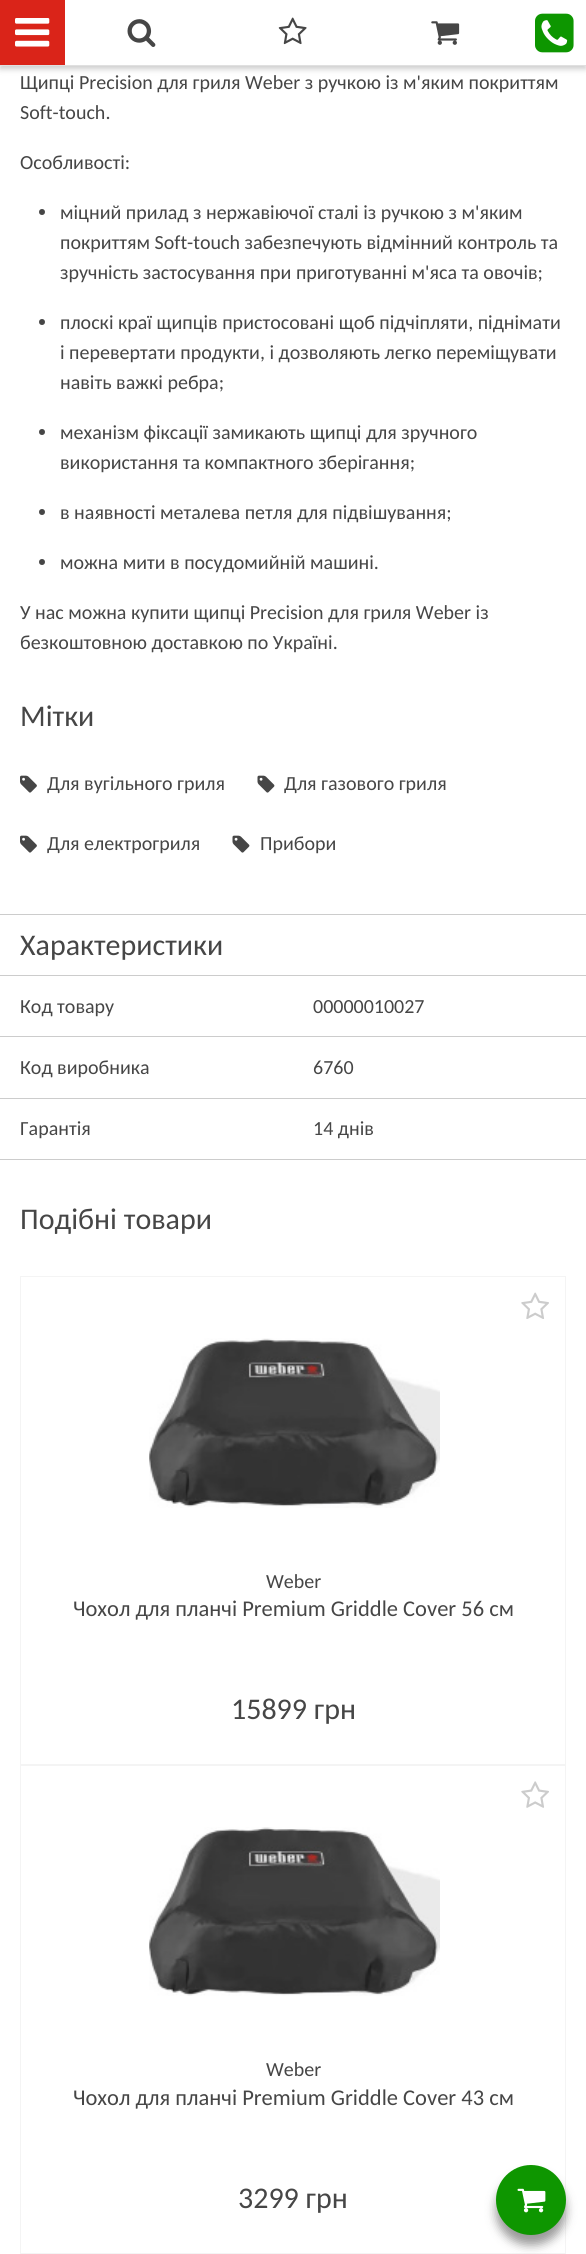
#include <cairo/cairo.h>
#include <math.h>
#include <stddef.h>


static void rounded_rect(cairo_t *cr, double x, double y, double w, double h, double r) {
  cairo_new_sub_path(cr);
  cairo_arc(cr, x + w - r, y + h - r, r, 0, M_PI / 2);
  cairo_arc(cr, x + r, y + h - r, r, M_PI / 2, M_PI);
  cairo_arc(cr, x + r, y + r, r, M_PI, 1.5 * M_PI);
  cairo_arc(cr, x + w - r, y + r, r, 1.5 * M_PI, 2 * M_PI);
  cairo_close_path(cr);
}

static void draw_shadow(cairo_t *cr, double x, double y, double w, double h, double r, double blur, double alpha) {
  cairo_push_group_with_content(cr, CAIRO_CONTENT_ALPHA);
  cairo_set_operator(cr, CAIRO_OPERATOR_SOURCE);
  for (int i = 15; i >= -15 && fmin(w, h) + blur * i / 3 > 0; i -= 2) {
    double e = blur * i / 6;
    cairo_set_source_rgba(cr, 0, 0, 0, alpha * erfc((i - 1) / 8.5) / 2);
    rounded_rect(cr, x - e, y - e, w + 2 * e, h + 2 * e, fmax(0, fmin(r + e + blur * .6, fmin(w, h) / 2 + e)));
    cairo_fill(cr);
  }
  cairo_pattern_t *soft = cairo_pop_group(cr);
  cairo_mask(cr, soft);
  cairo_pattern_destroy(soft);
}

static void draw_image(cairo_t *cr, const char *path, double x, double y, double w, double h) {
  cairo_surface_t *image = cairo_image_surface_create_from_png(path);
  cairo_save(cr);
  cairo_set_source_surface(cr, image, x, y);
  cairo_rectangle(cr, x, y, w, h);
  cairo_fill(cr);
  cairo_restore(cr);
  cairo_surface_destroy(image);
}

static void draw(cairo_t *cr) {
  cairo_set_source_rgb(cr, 1, 1, 1);
  cairo_paint(cr);
  cairo_set_source_rgb(cr, 0, 0, 0);
  draw_shadow(cr, 0, 3, 586, 66, 0, 3, 0.2);
  cairo_set_source_rgb(cr, 1, 1, 1);
  cairo_rectangle(cr, 65, 0, 521, 65);
  cairo_fill(cr);
  cairo_set_source_rgb(cr, 224 / 255.0, 224 / 255.0, 224 / 255.0);
  cairo_rectangle(cr, 0, 65, 586, 1);
  cairo_fill(cr);
  cairo_set_source_rgb(cr, 218 / 255.0, 36 / 255.0, 25 / 255.0);
  cairo_rectangle(cr, 0, 0, 65, 65);
  cairo_fill(cr);
  draw_image(cr, "images/1.png", 15, 18, 35, 29);
  draw_image(cr, "images/2.png", 127, 19, 29, 28);
  draw_image(cr, "images/3.png", 278, 17, 29, 28);
  draw_image(cr, "images/4.png", 431, 21, 29, 24);
  draw_image(cr, "images/5.png", 535, 13, 39, 40);
  cairo_set_source_rgb(cr, 204 / 255.0, 204 / 255.0, 204 / 255.0);
  cairo_rectangle(cr, 0, 1159, 586, 1);
  cairo_fill(cr);
  cairo_set_source_rgb(cr, 70 / 255.0, 70 / 255.0, 70 / 255.0);
  cairo_arc(cr, 42, 212, 3, 0, 2 * M_PI);
  cairo_fill(cr);
  cairo_arc(cr, 42, 322, 3, 0, 2 * M_PI);
  cairo_fill(cr);
  cairo_arc(cr, 42, 432, 3, 0, 2 * M_PI);
  cairo_fill(cr);
  cairo_arc(cr, 42, 512, 3, 0, 2 * M_PI);
  cairo_fill(cr);
  cairo_arc(cr, 42, 562, 3, 0, 2 * M_PI);
  cairo_fill(cr);
  draw_image(cr, "images/6.png", 20, 775, 17, 18);
  draw_image(cr, "images/7.png", 257, 775, 18, 18);
  draw_image(cr, "images/6.png", 20, 835, 17, 18);
  draw_image(cr, "images/7.png", 232, 835, 18, 18);
  cairo_set_source_rgb(cr, 204 / 255.0, 204 / 255.0, 204 / 255.0);
  cairo_rectangle(cr, 0, 914, 586, 1);
  cairo_fill(cr);
  cairo_rectangle(cr, 0, 975, 586, 1);
  cairo_fill(cr);
  cairo_rectangle(cr, 0, 1036, 586, 1);
  cairo_fill(cr);
  cairo_rectangle(cr, 0, 1098, 586, 1);
  cairo_fill(cr);
  cairo_rectangle(cr, 20.5, 1276.5, 545, 488);
  cairo_set_source_rgb(cr, 244 / 255.0, 244 / 255.0, 244 / 255.0);
  cairo_set_line_width(cr, 1);
  cairo_stroke(cr);
  draw_image(cr, "images/8.png", 521, 1292, 28, 27);
  draw_image(cr, "images/9.png", 149, 1338, 291, 170);
  cairo_rectangle(cr, 20.5, 1765.5, 545, 488);
  cairo_stroke(cr);
  draw_image(cr, "images/10.png", 521, 1781, 28, 27);
  draw_image(cr, "images/11.png", 149, 1827, 291, 169);
  cairo_set_source_rgb(cr, 0, 0, 0);
  draw_shadow(cr, 496, 2175, 70, 70, 35, 5, 0.4);
  cairo_set_source_rgb(cr, 14 / 255.0, 150 / 255.0, 0);
  cairo_arc(cr, 531, 2200, 35, 0, 2 * M_PI);
  cairo_fill(cr);
  draw_image(cr, "images/12.png", 517, 2188, 29, 25);
  cairo_select_font_face(cr, "Carlito", CAIRO_FONT_SLANT_NORMAL, CAIRO_FONT_WEIGHT_NORMAL);
  cairo_set_font_size(cr, 20);
  cairo_set_source_rgb(cr, 70 / 255.0, 70 / 255.0, 70 / 255.0);
  cairo_move_to(cr, 20, 89);
  cairo_show_text(cr, "Щипці Precision для гриля Weber з ручкою із м'яким покриттям");
  cairo_move_to(cr, 20, 119);
  cairo_show_text(cr, "Soft-touch.");
  cairo_move_to(cr, 20, 169);
  cairo_show_text(cr, "Особливості:");
  cairo_move_to(cr, 60, 219);
  cairo_show_text(cr, "міцний прилад з нержавіючої сталі із ручкою з м'яким");
  cairo_move_to(cr, 60, 249);
  cairo_show_text(cr, "покриттям Soft-touch забезпечують відмінний контроль та");
  cairo_move_to(cr, 60, 279);
  cairo_show_text(cr, "зручність застосування при приготуванні м'яса та овочів;");
  cairo_move_to(cr, 60, 329);
  cairo_show_text(cr, "плоскі краї щипців пристосовані щоб підчіпляти, піднімати");
  cairo_move_to(cr, 60, 359);
  cairo_show_text(cr, "і перевертати продукти, і дозволяють легко переміщувати");
  cairo_move_to(cr, 60, 389);
  cairo_show_text(cr, "навіть важкі ребра;");
  cairo_move_to(cr, 60, 439);
  cairo_show_text(cr, "механізм фіксації замикають щипці для зручного");
  cairo_move_to(cr, 60, 469);
  cairo_show_text(cr, "використання та компактного зберігання;");
  cairo_move_to(cr, 60, 519);
  cairo_show_text(cr, "в наявності металева петля для підвішування;");
  cairo_move_to(cr, 60, 569);
  cairo_show_text(cr, "можна мити в посудомийній машині.");
  cairo_move_to(cr, 20, 619);
  cairo_show_text(cr, "У нас можна купити щипці Precision для гриля Weber із");
  cairo_move_to(cr, 20, 649);
  cairo_show_text(cr, "безкоштовною доставкою по Україні.");
  cairo_set_font_size(cr, 30);
  cairo_move_to(cr, 20, 726);
  cairo_show_text(cr, "Мітки");
  cairo_set_font_size(cr, 20);
  cairo_move_to(cr, 47, 790);
  cairo_show_text(cr, "Для вугільного гриля");
  cairo_move_to(cr, 284, 790);
  cairo_show_text(cr, "Для газового гриля");
  cairo_move_to(cr, 47, 850);
  cairo_show_text(cr, "Для електрогриля");
  cairo_move_to(cr, 260, 850);
  cairo_show_text(cr, "Прибори");
  cairo_set_font_size(cr, 30);
  cairo_move_to(cr, 20, 955);
  cairo_show_text(cr, "Характеристики");
  cairo_set_font_size(cr, 20);
  cairo_move_to(cr, 20, 1013);
  cairo_show_text(cr, "Код товару");
  cairo_move_to(cr, 313, 1013);
  cairo_show_text(cr, "00000010027");
  cairo_move_to(cr, 20, 1074);
  cairo_show_text(cr, "Код виробника");
  cairo_move_to(cr, 313, 1074);
  cairo_show_text(cr, "6760");
  cairo_move_to(cr, 20, 1135);
  cairo_show_text(cr, "Гарантія");
  cairo_move_to(cr, 313, 1135);
  cairo_show_text(cr, "14 днів");
  cairo_set_font_size(cr, 30);
  cairo_move_to(cr, 20, 1229);
  cairo_show_text(cr, "Подібні товари");
  cairo_set_font_size(cr, 20);
  cairo_move_to(cr, 266, 1588);
  cairo_show_text(cr, "Weber");
  cairo_set_font_size(cr, 22.5);
  cairo_move_to(cr, 73, 1616);
  cairo_show_text(cr, "Чохол для планчі Premium Griddle Cover 56 см");
  cairo_set_font_size(cr, 30);
  cairo_move_to(cr, 231, 1719);
  cairo_show_text(cr, "15899 грн");
  cairo_set_font_size(cr, 20);
  cairo_move_to(cr, 266, 2076);
  cairo_show_text(cr, "Weber");
  cairo_set_font_size(cr, 22.5);
  cairo_move_to(cr, 73, 2105);
  cairo_show_text(cr, "Чохол для планчі Premium Griddle Cover 43 см");
  cairo_set_font_size(cr, 30);
  cairo_move_to(cr, 238, 2208);
  cairo_show_text(cr, "3299 грн");
}

int main(void) {
  cairo_surface_t *surface = cairo_image_surface_create(CAIRO_FORMAT_RGB24, 586, 2254);
  cairo_t *cr = cairo_create(surface);
  cairo_font_options_t *options = cairo_font_options_create();
  cairo_font_options_set_hint_metrics(options, CAIRO_HINT_METRICS_OFF);
  cairo_font_options_set_hint_style(options, CAIRO_HINT_STYLE_NONE);
  cairo_set_font_options(cr, options);
  cairo_set_miter_limit(cr, 4);
  draw(cr);
  cairo_surface_write_to_png(surface, "out.png");
  cairo_font_options_destroy(options);
  cairo_destroy(cr);
  cairo_surface_destroy(surface);
  return 0;
}
